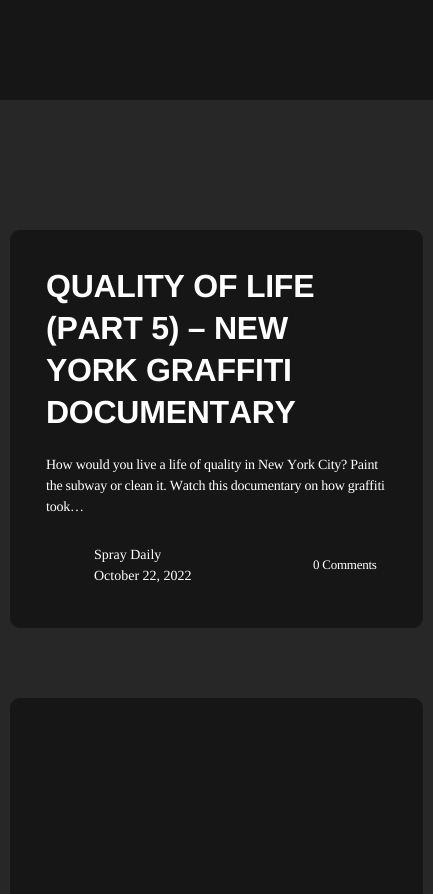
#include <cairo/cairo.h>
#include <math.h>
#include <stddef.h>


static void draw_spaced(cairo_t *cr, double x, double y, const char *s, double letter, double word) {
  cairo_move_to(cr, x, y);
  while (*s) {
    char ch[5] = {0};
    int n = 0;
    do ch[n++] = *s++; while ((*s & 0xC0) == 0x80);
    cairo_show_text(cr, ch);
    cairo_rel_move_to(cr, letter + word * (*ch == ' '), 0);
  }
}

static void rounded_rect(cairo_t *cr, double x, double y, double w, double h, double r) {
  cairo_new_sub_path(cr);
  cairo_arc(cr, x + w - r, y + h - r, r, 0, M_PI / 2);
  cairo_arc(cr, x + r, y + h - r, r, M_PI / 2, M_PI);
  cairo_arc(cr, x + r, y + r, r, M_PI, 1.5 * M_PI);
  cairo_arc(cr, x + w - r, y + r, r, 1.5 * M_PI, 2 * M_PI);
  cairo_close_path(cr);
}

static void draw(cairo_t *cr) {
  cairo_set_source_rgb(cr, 39 / 255.0, 39 / 255.0, 39 / 255.0);
  cairo_paint(cr);
  cairo_set_source_rgb(cr, 22 / 255.0, 22 / 255.0, 22 / 255.0);
  cairo_rectangle(cr, 0, 0, 433, 100);
  cairo_fill(cr);
  rounded_rect(cr, 10.5, 230.5, 412, 397, 9.5);
  cairo_fill_preserve(cr);
  cairo_set_line_width(cr, 1);
  cairo_stroke(cr);
  rounded_rect(cr, 10.5, 698.5, 412, 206, 9.5);
  cairo_fill_preserve(cr);
  cairo_stroke(cr);
  cairo_select_font_face(cr, "Liberation Sans", CAIRO_FONT_SLANT_NORMAL, CAIRO_FONT_WEIGHT_BOLD);
  cairo_set_font_size(cr, 32);
  cairo_set_source_rgb(cr, 1, 1, 1);
  draw_spaced(cr, 46, 297, "QUALITY OF LIFE", -0.25, 0);
  draw_spaced(cr, 46, 339, "(PART 5) – NEW", -0.25, 0);
  draw_spaced(cr, 46, 381, "YORK GRAFFITI", -0.25, 0);
  draw_spaced(cr, 46, 423, "DOCUMENTARY", -0.25, 0);
  cairo_select_font_face(cr, "Liberation Serif", CAIRO_FONT_SLANT_NORMAL, CAIRO_FONT_WEIGHT_NORMAL);
  cairo_set_font_size(cr, 14);
  draw_spaced(cr, 46, 469, "How would you live a life of quality in New York City? Paint", -0.25, 0);
  draw_spaced(cr, 46, 490, "the subway or clean it. Watch this documentary on how graffiti", -0.25, 0);
  draw_spaced(cr, 46, 511, "took…", -0.25, 0);
  cairo_move_to(cr, 94, 559);
  cairo_show_text(cr, "Spray Daily");
  cairo_move_to(cr, 94, 580);
  cairo_show_text(cr, "October 22, 2022");
  cairo_set_font_size(cr, 13);
  draw_spaced(cr, 313, 569, "0 Comments", -0.25, 0);
}

int main(void) {
  cairo_surface_t *surface = cairo_image_surface_create(CAIRO_FORMAT_RGB24, 433, 894);
  cairo_t *cr = cairo_create(surface);
  cairo_font_options_t *options = cairo_font_options_create();
  cairo_font_options_set_hint_metrics(options, CAIRO_HINT_METRICS_OFF);
  cairo_font_options_set_hint_style(options, CAIRO_HINT_STYLE_NONE);
  cairo_set_font_options(cr, options);
  cairo_set_miter_limit(cr, 4);
  draw(cr);
  cairo_surface_write_to_png(surface, "out.png");
  cairo_font_options_destroy(options);
  cairo_destroy(cr);
  cairo_surface_destroy(surface);
  return 0;
}
